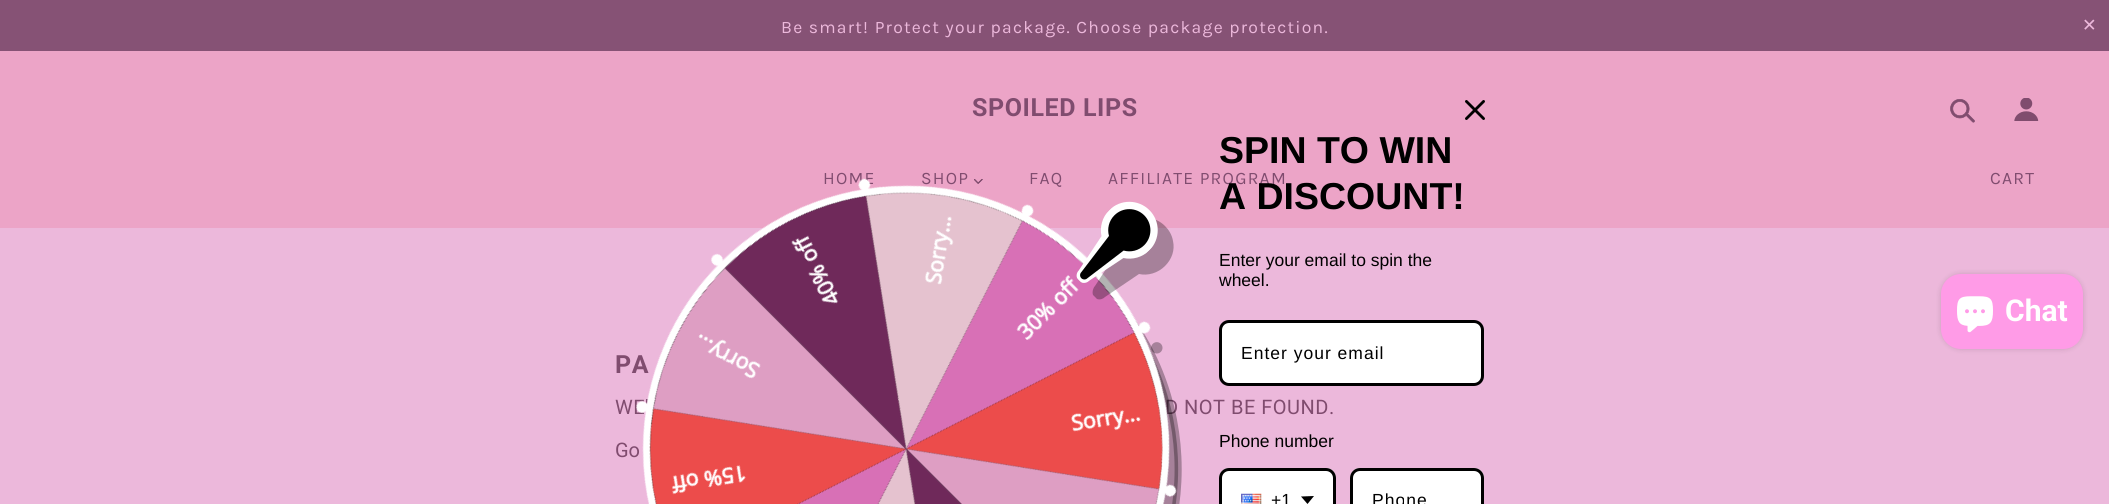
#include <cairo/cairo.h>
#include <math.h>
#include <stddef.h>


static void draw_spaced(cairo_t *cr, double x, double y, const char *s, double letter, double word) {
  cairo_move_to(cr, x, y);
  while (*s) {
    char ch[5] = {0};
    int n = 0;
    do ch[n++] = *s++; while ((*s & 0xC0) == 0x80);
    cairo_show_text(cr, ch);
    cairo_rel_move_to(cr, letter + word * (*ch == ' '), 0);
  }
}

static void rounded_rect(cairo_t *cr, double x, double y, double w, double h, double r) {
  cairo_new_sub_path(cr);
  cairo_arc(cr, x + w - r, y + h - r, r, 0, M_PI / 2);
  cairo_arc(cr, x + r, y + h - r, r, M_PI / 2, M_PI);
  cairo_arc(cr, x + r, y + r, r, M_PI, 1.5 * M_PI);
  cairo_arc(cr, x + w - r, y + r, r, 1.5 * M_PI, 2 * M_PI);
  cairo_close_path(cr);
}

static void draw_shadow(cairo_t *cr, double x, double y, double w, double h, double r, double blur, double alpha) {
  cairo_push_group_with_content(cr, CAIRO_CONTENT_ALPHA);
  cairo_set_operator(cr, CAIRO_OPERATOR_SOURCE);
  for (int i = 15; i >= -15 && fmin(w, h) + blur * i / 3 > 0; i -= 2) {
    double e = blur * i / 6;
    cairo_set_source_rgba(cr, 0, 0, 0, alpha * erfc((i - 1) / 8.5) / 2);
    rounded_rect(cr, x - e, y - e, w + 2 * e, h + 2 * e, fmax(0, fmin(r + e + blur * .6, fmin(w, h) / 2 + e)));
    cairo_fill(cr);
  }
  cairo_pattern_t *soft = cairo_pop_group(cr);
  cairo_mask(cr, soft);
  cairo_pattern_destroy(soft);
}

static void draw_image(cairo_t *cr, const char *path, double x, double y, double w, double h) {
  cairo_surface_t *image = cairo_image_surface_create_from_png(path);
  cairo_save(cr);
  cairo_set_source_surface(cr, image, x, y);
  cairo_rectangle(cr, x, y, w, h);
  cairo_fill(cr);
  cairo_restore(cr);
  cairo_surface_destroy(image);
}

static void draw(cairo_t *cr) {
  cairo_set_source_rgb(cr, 236 / 255.0, 184 / 255.0, 219 / 255.0);
  cairo_paint(cr);
  cairo_set_source_rgb(cr, 134 / 255.0, 82 / 255.0, 117 / 255.0);
  cairo_rectangle(cr, 0, 0, 2109, 51);
  cairo_fill(cr);
  cairo_set_source_rgb(cr, 236 / 255.0, 164 / 255.0, 199 / 255.0);
  cairo_rectangle(cr, 0, 51, 2109, 177);
  cairo_fill(cr);
  draw_image(cr, "images/1.png", 1950, 99, 25, 24);
  draw_image(cr, "images/2.png", 2014, 98, 25, 23);
  draw_image(cr, "images/3.png", 974, 179, 9, 5);
  draw_image(cr, "images/4.png", 1465, 100, 20, 20);
  cairo_set_source_rgb(cr, 1, 1, 1);
  rounded_rect(cr, 1220.5, 321.5, 262, 63, 8.5);
  cairo_fill_preserve(cr);
  cairo_set_source_rgb(cr, 0, 0, 0);
  cairo_set_line_width(cr, 3);
  cairo_stroke(cr);
  cairo_set_source_rgb(cr, 1, 1, 1);
  cairo_new_path(cr);
  cairo_move_to(cr, 1229, 468);
  cairo_line_to(cr, 1326, 468);
  cairo_curve_to(cr, 1331.5, 468, 1336, 472.5, 1336, 478);
  cairo_line_to(cr, 1336, 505);
  cairo_line_to(cr, 1219, 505);
  cairo_line_to(cr, 1219, 478);
  cairo_curve_to(cr, 1219, 472.5, 1223.5, 468, 1229, 468);
  cairo_close_path(cr);
  cairo_fill(cr);
  rounded_rect(cr, 1220.5, 469.5, 114, 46, 8.5);
  cairo_set_source_rgb(cr, 0, 0, 0);
  cairo_stroke(cr);
  draw_image(cr, "images/8.png", 1241, 493, 21, 11);
  cairo_set_fill_rule(cr, CAIRO_FILL_RULE_EVEN_ODD);
  cairo_new_path(cr);
  cairo_move_to(cr, 1301, 496.5);
  cairo_line_to(cr, 1314, 496);
  cairo_line_to(cr, 1307.5, 504);
  cairo_close_path(cr);
  cairo_fill(cr);
  cairo_set_source_rgb(cr, 1, 1, 1);
  cairo_new_path(cr);
  cairo_move_to(cr, 1360, 468);
  cairo_line_to(cr, 1474, 468);
  cairo_curve_to(cr, 1479.5, 468, 1484, 472.5, 1484, 478);
  cairo_line_to(cr, 1484, 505);
  cairo_line_to(cr, 1350, 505);
  cairo_line_to(cr, 1350, 478);
  cairo_curve_to(cr, 1350, 472.5, 1354.5, 468, 1360, 468);
  cairo_close_path(cr);
  cairo_fill(cr);
  rounded_rect(cr, 1351.5, 469.5, 131, 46, 8.5);
  cairo_set_source_rgb(cr, 0, 0, 0);
  cairo_stroke(cr);
  cairo_set_source_rgb(cr, 0, 0, 0);
  draw_shadow(cr, 1941, 274, 142, 75, 20, 3, 0.15);
  cairo_set_source_rgb(cr, 1, 155 / 255.0, 231 / 255.0);
  rounded_rect(cr, 1941, 274, 142, 75, 20);
  cairo_fill(cr);
  draw_image(cr, "images/9.png", 1957, 296, 36, 37);
  cairo_select_font_face(cr, "Karla", CAIRO_FONT_SLANT_NORMAL, CAIRO_FONT_WEIGHT_NORMAL);
  cairo_set_font_size(cr, 17.5);
  cairo_set_source_rgb(cr, 236 / 255.0, 184 / 255.0, 219 / 255.0);
  draw_spaced(cr, 781, 33, "Be smart! Protect your package. Choose package protection.", 1.25, 0);
  cairo_select_font_face(cr, "DejaVu Sans", CAIRO_FONT_SLANT_NORMAL, CAIRO_FONT_WEIGHT_NORMAL);
  draw_spaced(cr, 2082, 31, "✕", 1.25, 0);
  cairo_select_font_face(cr, "Roboto", CAIRO_FONT_SLANT_NORMAL, CAIRO_FONT_WEIGHT_BOLD);
  cairo_set_font_size(cr, 25);
  cairo_set_source_rgb(cr, 128 / 255.0, 76 / 255.0, 111 / 255.0);
  draw_spaced(cr, 972, 116, "SPOILED LIPS", 0.6, 0);
  cairo_select_font_face(cr, "Karla", CAIRO_FONT_SLANT_NORMAL, CAIRO_FONT_WEIGHT_NORMAL);
  cairo_set_font_size(cr, 17.5);
  draw_spaced(cr, 823, 184, "HOME", 1.25, 0);
  draw_spaced(cr, 921, 184, "SHOP", 1.25, 0);
  draw_spaced(cr, 1029, 184, "FAQ", 1.25, 0);
  draw_spaced(cr, 1108, 184, "AFFILIATE PROGRAM", 1.25, 0);
  draw_spaced(cr, 1990, 184, "CART", 1.25, 0);
  cairo_select_font_face(cr, "Roboto", CAIRO_FONT_SLANT_NORMAL, CAIRO_FONT_WEIGHT_BOLD);
  cairo_set_font_size(cr, 25);
  draw_spaced(cr, 615, 373, "PA", 0.6, 0);
  cairo_select_font_face(cr, "Roboto", CAIRO_FONT_SLANT_NORMAL, CAIRO_FONT_WEIGHT_NORMAL);
  cairo_set_font_size(cr, 20);
  draw_spaced(cr, 615, 414, "WE'", 0.5, 0);
  draw_spaced(cr, 1165, 414, "D NOT BE FOUND.", 0.5, 0);
  cairo_move_to(cr, 615, 457);
  cairo_show_text(cr, "Go");
  draw_image(cr, "images/7.png", 1128, 310, 54, 194);
  draw_image(cr, "images/5.png", 636, 178, 541, 326);
  cairo_set_source_rgba(cr, 0, 0, 0, 0.3);
  cairo_set_fill_rule(cr, CAIRO_FILL_RULE_WINDING);
  cairo_new_path(cr);
  cairo_move_to(cr, 1165, 266);
  cairo_curve_to(cr, 1158, 273, 1148, 276, 1139, 274);
  cairo_line_to(cr, 1105, 297);
  cairo_curve_to(cr, 1103, 299, 1100, 300, 1097, 299);
  cairo_line_to(cr, 1093, 295);
  cairo_curve_to(cr, 1092, 292, 1093, 288, 1095, 286);
  cairo_line_to(cr, 1117, 252);
  cairo_curve_to(cr, 1111, 226, 1145, 206, 1165, 226);
  cairo_curve_to(cr, 1169, 230, 1172, 235, 1173, 241);
  cairo_curve_to(cr, 1175, 250, 1172, 259, 1165, 266);
  cairo_close_path(cr);
  cairo_fill(cr);
  draw_image(cr, "images/6.png", 1076, 201, 82, 82);
  cairo_select_font_face(cr, "Liberation Sans", CAIRO_FONT_SLANT_NORMAL, CAIRO_FONT_WEIGHT_BOLD);
  cairo_set_font_size(cr, 37.5);
  cairo_set_source_rgb(cr, 0, 0, 0);
  cairo_move_to(cr, 1219, 163);
  cairo_show_text(cr, "SPIN TO WIN");
  cairo_move_to(cr, 1219, 209);
  cairo_show_text(cr, "A DISCOUNT!");
  cairo_select_font_face(cr, "Liberation Sans", CAIRO_FONT_SLANT_NORMAL, CAIRO_FONT_WEIGHT_NORMAL);
  cairo_set_font_size(cr, 17.5);
  cairo_move_to(cr, 1219, 266);
  cairo_show_text(cr, "Enter your email to spin the");
  cairo_move_to(cr, 1219, 286);
  cairo_show_text(cr, "wheel.");
  draw_spaced(cr, 1241, 359, "Enter your email", 1, 0);
  cairo_move_to(cr, 1219, 447);
  cairo_show_text(cr, "Phone number");
  cairo_move_to(cr, 1271, 506);
  cairo_show_text(cr, "+1");
  draw_spaced(cr, 1372, 506, "Phone", 1, 0);
  cairo_select_font_face(cr, "Roboto", CAIRO_FONT_SLANT_NORMAL, CAIRO_FONT_WEIGHT_BOLD);
  cairo_set_font_size(cr, 30);
  cairo_set_source_rgb(cr, 1, 1, 1);
  cairo_move_to(cr, 2005, 321);
  cairo_show_text(cr, "Chat");
}

int main(void) {
  cairo_surface_t *surface = cairo_image_surface_create(CAIRO_FORMAT_RGB24, 2109, 504);
  cairo_t *cr = cairo_create(surface);
  cairo_font_options_t *options = cairo_font_options_create();
  cairo_font_options_set_hint_metrics(options, CAIRO_HINT_METRICS_OFF);
  cairo_font_options_set_hint_style(options, CAIRO_HINT_STYLE_NONE);
  cairo_set_font_options(cr, options);
  cairo_set_miter_limit(cr, 4);
  draw(cr);
  cairo_surface_write_to_png(surface, "out.png");
  cairo_font_options_destroy(options);
  cairo_destroy(cr);
  cairo_surface_destroy(surface);
  return 0;
}
